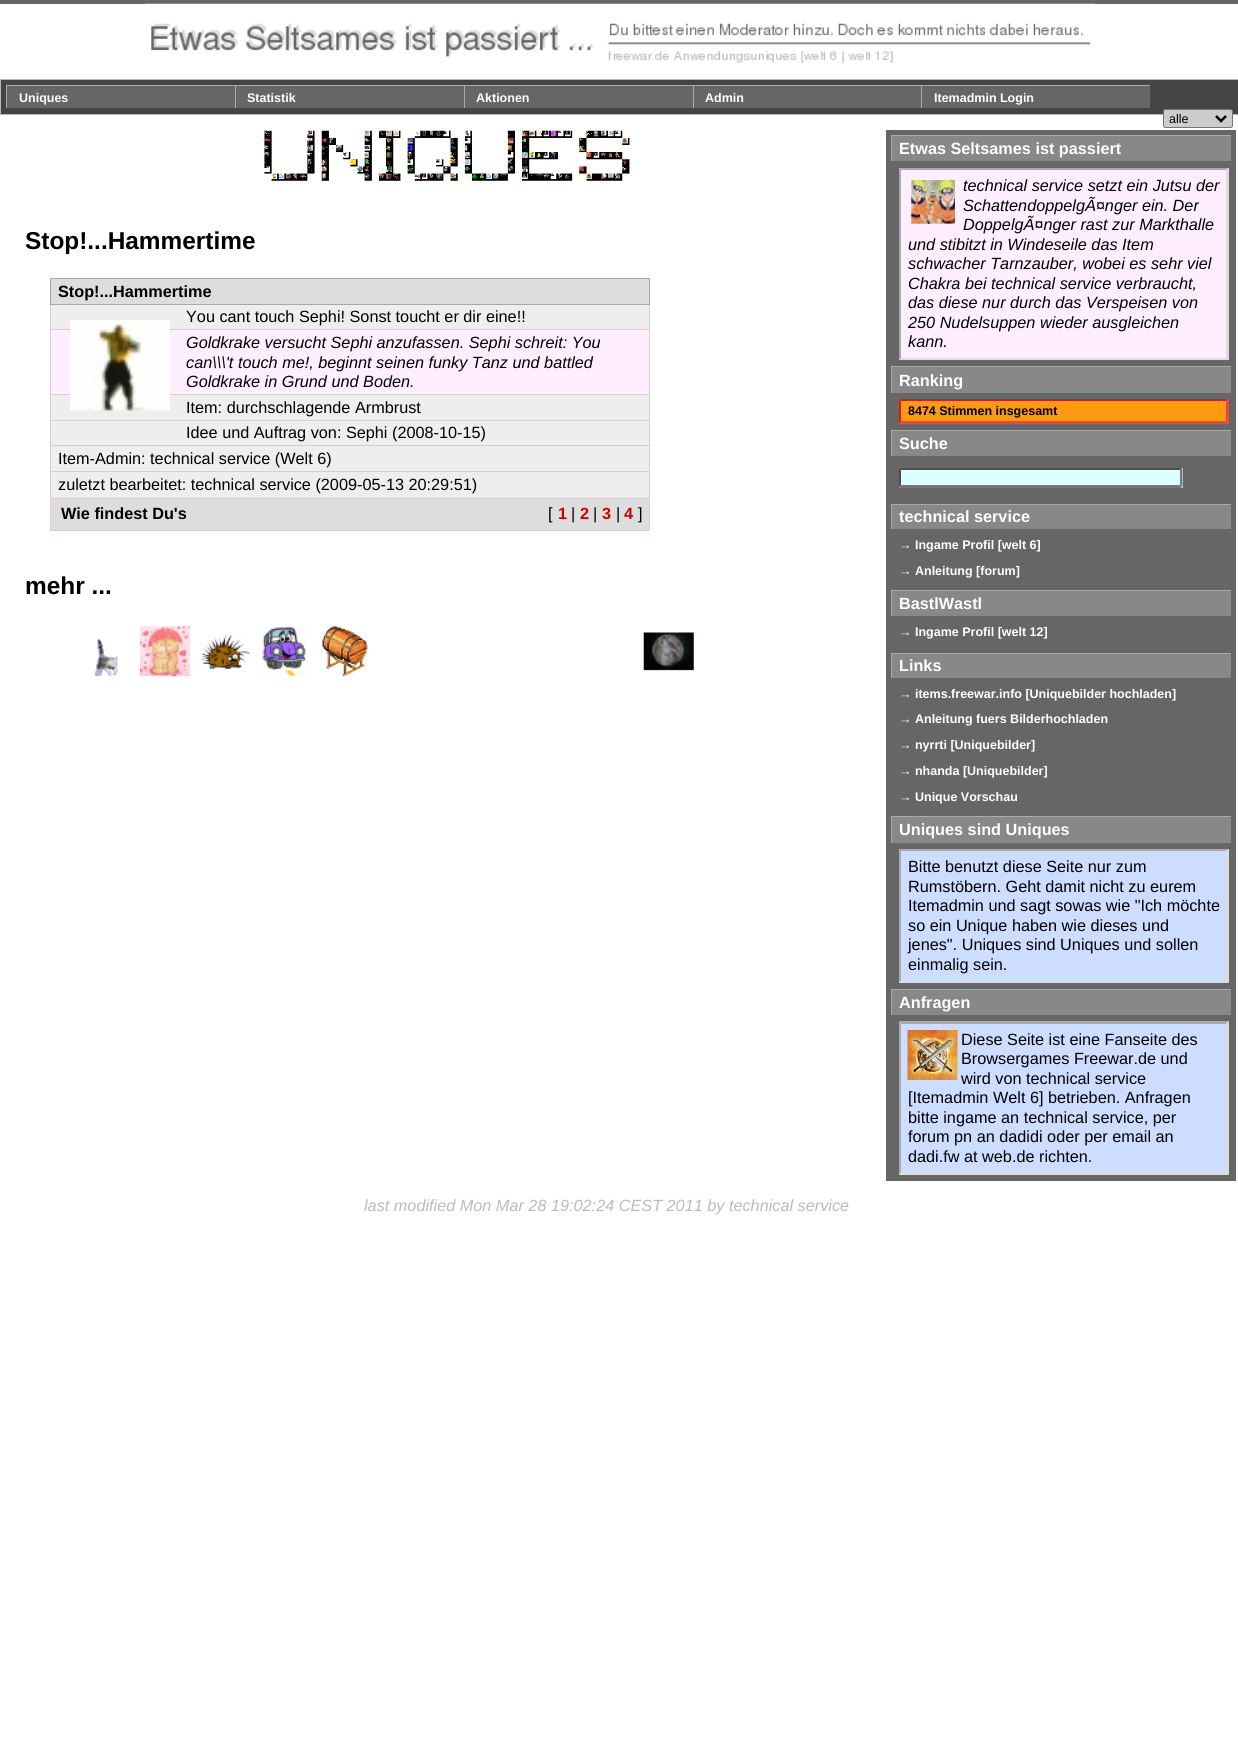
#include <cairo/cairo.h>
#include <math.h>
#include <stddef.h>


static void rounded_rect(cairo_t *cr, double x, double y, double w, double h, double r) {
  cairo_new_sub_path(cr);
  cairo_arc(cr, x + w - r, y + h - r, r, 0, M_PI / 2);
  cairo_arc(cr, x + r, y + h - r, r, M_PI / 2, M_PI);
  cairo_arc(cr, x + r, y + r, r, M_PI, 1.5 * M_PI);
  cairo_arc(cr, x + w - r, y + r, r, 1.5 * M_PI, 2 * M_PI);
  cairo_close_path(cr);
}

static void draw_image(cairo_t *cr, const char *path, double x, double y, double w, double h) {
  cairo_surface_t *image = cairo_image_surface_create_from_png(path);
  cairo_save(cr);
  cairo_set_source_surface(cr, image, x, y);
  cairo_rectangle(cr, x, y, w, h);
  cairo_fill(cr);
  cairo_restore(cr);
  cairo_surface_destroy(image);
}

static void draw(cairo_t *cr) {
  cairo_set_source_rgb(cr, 1, 1, 1);
  cairo_paint(cr);
  cairo_set_source_rgb(cr, 102 / 255.0, 102 / 255.0, 102 / 255.0);
  cairo_rectangle(cr, 0, 0, 1238, 4);
  cairo_fill(cr);
  draw_image(cr, "images/1.png", 145, 3, 950, 61);
  cairo_set_source_rgb(cr, 68 / 255.0, 68 / 255.0, 68 / 255.0);
  cairo_rectangle(cr, 0.5, 79.5, 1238, 35);
  cairo_fill_preserve(cr);
  cairo_set_source_rgb(cr, 170 / 255.0, 187 / 255.0, 204 / 255.0);
  cairo_set_line_width(cr, 1);
  cairo_stroke(cr);
  cairo_set_source_rgb(cr, 102 / 255.0, 102 / 255.0, 102 / 255.0);
  cairo_rectangle(cr, 7, 86, 228, 22);
  cairo_fill(cr);
  cairo_set_source_rgb(cr, 170 / 255.0, 170 / 255.0, 170 / 255.0);
  cairo_rectangle(cr, 6, 85, 1144, 1);
  cairo_fill(cr);
  cairo_rectangle(cr, 6, 85, 1, 23);
  cairo_fill(cr);
  cairo_set_source_rgb(cr, 102 / 255.0, 102 / 255.0, 102 / 255.0);
  cairo_rectangle(cr, 236, 86, 228, 22);
  cairo_fill(cr);
  cairo_set_source_rgb(cr, 170 / 255.0, 170 / 255.0, 170 / 255.0);
  cairo_rectangle(cr, 235, 85, 1, 23);
  cairo_fill(cr);
  cairo_set_source_rgb(cr, 102 / 255.0, 102 / 255.0, 102 / 255.0);
  cairo_rectangle(cr, 465, 86, 228, 22);
  cairo_fill(cr);
  cairo_set_source_rgb(cr, 170 / 255.0, 170 / 255.0, 170 / 255.0);
  cairo_rectangle(cr, 464, 85, 1, 23);
  cairo_fill(cr);
  cairo_set_source_rgb(cr, 102 / 255.0, 102 / 255.0, 102 / 255.0);
  cairo_rectangle(cr, 694, 86, 227, 22);
  cairo_fill(cr);
  cairo_set_source_rgb(cr, 170 / 255.0, 170 / 255.0, 170 / 255.0);
  cairo_rectangle(cr, 693, 85, 1, 23);
  cairo_fill(cr);
  cairo_set_source_rgb(cr, 102 / 255.0, 102 / 255.0, 102 / 255.0);
  cairo_rectangle(cr, 922, 86, 228, 22);
  cairo_fill(cr);
  cairo_set_source_rgb(cr, 170 / 255.0, 170 / 255.0, 170 / 255.0);
  cairo_rectangle(cr, 921, 85, 1, 23);
  cairo_fill(cr);
  cairo_set_source_rgb(cr, 204 / 255.0, 204 / 255.0, 204 / 255.0);
  rounded_rect(cr, 1163.5, 109.5, 69, 18, 2);
  cairo_fill_preserve(cr);
  cairo_set_source_rgb(cr, 118 / 255.0, 118 / 255.0, 118 / 255.0);
  cairo_stroke(cr);
  cairo_new_path(cr);
  cairo_move_to(cr, 1216, 116);
  cairo_line_to(cr, 1221, 121);
  cairo_line_to(cr, 1226, 116);
  cairo_set_source_rgb(cr, 0, 0, 0);
  cairo_set_line_width(cr, 2.5);
  cairo_stroke(cr);
  draw_image(cr, "images/2.png", 264, 130, 366, 51);
  cairo_set_source_rgb(cr, 102 / 255.0, 102 / 255.0, 102 / 255.0);
  cairo_rectangle(cr, 886, 130, 350, 1051);
  cairo_fill(cr);
  cairo_set_source_rgb(cr, 136 / 255.0, 136 / 255.0, 136 / 255.0);
  cairo_rectangle(cr, 892, 136, 339, 25);
  cairo_fill(cr);
  cairo_set_source_rgb(cr, 170 / 255.0, 170 / 255.0, 170 / 255.0);
  cairo_rectangle(cr, 891, 135, 340, 1);
  cairo_fill(cr);
  cairo_rectangle(cr, 891, 135, 1, 26);
  cairo_fill(cr);
  cairo_set_source_rgb(cr, 1, 238 / 255.0, 1);
  cairo_rectangle(cr, 899, 168, 330, 192);
  cairo_fill(cr);
  cairo_set_source_rgb(cr, 170 / 255.0, 170 / 255.0, 170 / 255.0);
  cairo_new_path(cr);
  cairo_move_to(cr, 899, 168);
  cairo_line_to(cr, 1229, 168);
  cairo_line_to(cr, 1226, 170);
  cairo_line_to(cr, 901, 170);
  cairo_close_path(cr);
  cairo_fill(cr);
  cairo_set_source_rgb(cr, 221 / 255.0, 221 / 255.0, 221 / 255.0);
  cairo_new_path(cr);
  cairo_move_to(cr, 1229, 168);
  cairo_line_to(cr, 1229, 360);
  cairo_line_to(cr, 1226, 358);
  cairo_line_to(cr, 1226, 170);
  cairo_close_path(cr);
  cairo_fill(cr);
  cairo_new_path(cr);
  cairo_move_to(cr, 1229, 360);
  cairo_line_to(cr, 899, 360);
  cairo_line_to(cr, 901, 358);
  cairo_line_to(cr, 1226, 358);
  cairo_close_path(cr);
  cairo_fill(cr);
  cairo_set_source_rgb(cr, 170 / 255.0, 170 / 255.0, 170 / 255.0);
  cairo_new_path(cr);
  cairo_move_to(cr, 899, 360);
  cairo_line_to(cr, 899, 168);
  cairo_line_to(cr, 901, 170);
  cairo_line_to(cr, 901, 358);
  cairo_close_path(cr);
  cairo_fill(cr);
  draw_image(cr, "images/3.png", 911, 180, 44, 44);
  cairo_set_source_rgb(cr, 136 / 255.0, 136 / 255.0, 136 / 255.0);
  cairo_rectangle(cr, 892, 367, 339, 26);
  cairo_fill(cr);
  cairo_set_source_rgb(cr, 170 / 255.0, 170 / 255.0, 170 / 255.0);
  cairo_rectangle(cr, 891, 366, 340, 1);
  cairo_fill(cr);
  cairo_rectangle(cr, 891, 366, 1, 27);
  cairo_fill(cr);
  cairo_set_source_rgb(cr, 1, 153 / 255.0, 17 / 255.0);
  cairo_rectangle(cr, 899, 399, 330, 25);
  cairo_fill(cr);
  cairo_set_source_rgb(cr, 204 / 255.0, 34 / 255.0, 34 / 255.0);
  cairo_new_path(cr);
  cairo_move_to(cr, 899, 399);
  cairo_line_to(cr, 1229, 399);
  cairo_line_to(cr, 1226, 401);
  cairo_line_to(cr, 901, 401);
  cairo_close_path(cr);
  cairo_fill(cr);
  cairo_set_source_rgb(cr, 238 / 255.0, 68 / 255.0, 68 / 255.0);
  cairo_new_path(cr);
  cairo_move_to(cr, 1229, 399);
  cairo_line_to(cr, 1229, 424);
  cairo_line_to(cr, 1226, 421);
  cairo_line_to(cr, 1226, 401);
  cairo_close_path(cr);
  cairo_fill(cr);
  cairo_new_path(cr);
  cairo_move_to(cr, 1229, 424);
  cairo_line_to(cr, 899, 424);
  cairo_line_to(cr, 901, 421);
  cairo_line_to(cr, 1226, 421);
  cairo_close_path(cr);
  cairo_fill(cr);
  cairo_set_source_rgb(cr, 204 / 255.0, 34 / 255.0, 34 / 255.0);
  cairo_new_path(cr);
  cairo_move_to(cr, 899, 424);
  cairo_line_to(cr, 899, 399);
  cairo_line_to(cr, 901, 401);
  cairo_line_to(cr, 901, 421);
  cairo_close_path(cr);
  cairo_fill(cr);
  cairo_set_source_rgb(cr, 136 / 255.0, 136 / 255.0, 136 / 255.0);
  cairo_rectangle(cr, 892, 431, 339, 25);
  cairo_fill(cr);
  cairo_set_source_rgb(cr, 170 / 255.0, 170 / 255.0, 170 / 255.0);
  cairo_rectangle(cr, 891, 430, 340, 1);
  cairo_fill(cr);
  cairo_rectangle(cr, 891, 430, 1, 26);
  cairo_fill(cr);
  cairo_set_source_rgb(cr, 221 / 255.0, 1, 1);
  cairo_rectangle(cr, 899, 468, 284, 20);
  cairo_fill(cr);
  cairo_set_source_rgb(cr, 79 / 255.0, 79 / 255.0, 79 / 255.0);
  cairo_new_path(cr);
  cairo_move_to(cr, 899, 468);
  cairo_line_to(cr, 1182, 468);
  cairo_line_to(cr, 1180, 470);
  cairo_line_to(cr, 901, 470);
  cairo_close_path(cr);
  cairo_fill(cr);
  cairo_set_source_rgb(cr, 118 / 255.0, 118 / 255.0, 118 / 255.0);
  cairo_new_path(cr);
  cairo_move_to(cr, 1182.5, 467.5);
  cairo_line_to(cr, 1182.5, 487.5);
  cairo_line_to(cr, 1180, 485);
  cairo_line_to(cr, 1180, 470);
  cairo_close_path(cr);
  cairo_fill(cr);
  cairo_new_path(cr);
  cairo_move_to(cr, 1182, 488);
  cairo_line_to(cr, 899, 488);
  cairo_line_to(cr, 901, 485);
  cairo_line_to(cr, 1180, 485);
  cairo_close_path(cr);
  cairo_fill(cr);
  cairo_set_source_rgb(cr, 79 / 255.0, 79 / 255.0, 79 / 255.0);
  cairo_new_path(cr);
  cairo_move_to(cr, 899, 487.5);
  cairo_line_to(cr, 899, 467.5);
  cairo_line_to(cr, 901, 470);
  cairo_line_to(cr, 901, 485);
  cairo_close_path(cr);
  cairo_fill(cr);
  cairo_set_source_rgb(cr, 136 / 255.0, 136 / 255.0, 136 / 255.0);
  cairo_rectangle(cr, 892, 505, 339, 24);
  cairo_fill(cr);
  cairo_set_source_rgb(cr, 170 / 255.0, 170 / 255.0, 170 / 255.0);
  cairo_rectangle(cr, 891, 504, 340, 1);
  cairo_fill(cr);
  cairo_rectangle(cr, 891, 504, 1, 25);
  cairo_fill(cr);
  cairo_set_source_rgb(cr, 136 / 255.0, 136 / 255.0, 136 / 255.0);
  cairo_rectangle(cr, 892, 591, 339, 25);
  cairo_fill(cr);
  cairo_set_source_rgb(cr, 170 / 255.0, 170 / 255.0, 170 / 255.0);
  cairo_rectangle(cr, 891, 590, 340, 1);
  cairo_fill(cr);
  cairo_rectangle(cr, 891, 590, 1, 26);
  cairo_fill(cr);
  cairo_set_source_rgb(cr, 136 / 255.0, 136 / 255.0, 136 / 255.0);
  cairo_rectangle(cr, 892, 654, 339, 24);
  cairo_fill(cr);
  cairo_set_source_rgb(cr, 170 / 255.0, 170 / 255.0, 170 / 255.0);
  cairo_rectangle(cr, 891, 653, 340, 1);
  cairo_fill(cr);
  cairo_rectangle(cr, 891, 653, 1, 25);
  cairo_fill(cr);
  cairo_set_source_rgb(cr, 136 / 255.0, 136 / 255.0, 136 / 255.0);
  cairo_rectangle(cr, 892, 817, 339, 26);
  cairo_fill(cr);
  cairo_set_source_rgb(cr, 170 / 255.0, 170 / 255.0, 170 / 255.0);
  cairo_rectangle(cr, 891, 816, 340, 1);
  cairo_fill(cr);
  cairo_rectangle(cr, 891, 816, 1, 27);
  cairo_fill(cr);
  cairo_set_source_rgb(cr, 204 / 255.0, 221 / 255.0, 1);
  cairo_rectangle(cr, 899, 849, 330, 134);
  cairo_fill(cr);
  cairo_set_source_rgb(cr, 170 / 255.0, 170 / 255.0, 170 / 255.0);
  cairo_new_path(cr);
  cairo_move_to(cr, 899, 849);
  cairo_line_to(cr, 1229, 849);
  cairo_line_to(cr, 1226, 851);
  cairo_line_to(cr, 901, 851);
  cairo_close_path(cr);
  cairo_fill(cr);
  cairo_set_source_rgb(cr, 221 / 255.0, 221 / 255.0, 221 / 255.0);
  cairo_new_path(cr);
  cairo_move_to(cr, 1229, 849);
  cairo_line_to(cr, 1229, 982);
  cairo_line_to(cr, 1226, 980);
  cairo_line_to(cr, 1226, 851);
  cairo_close_path(cr);
  cairo_fill(cr);
  cairo_new_path(cr);
  cairo_move_to(cr, 1229, 982);
  cairo_line_to(cr, 899, 982);
  cairo_line_to(cr, 901, 980);
  cairo_line_to(cr, 1226, 980);
  cairo_close_path(cr);
  cairo_fill(cr);
  cairo_set_source_rgb(cr, 170 / 255.0, 170 / 255.0, 170 / 255.0);
  cairo_new_path(cr);
  cairo_move_to(cr, 899, 982);
  cairo_line_to(cr, 899, 849);
  cairo_line_to(cr, 901, 851);
  cairo_line_to(cr, 901, 980);
  cairo_close_path(cr);
  cairo_fill(cr);
  cairo_set_source_rgb(cr, 136 / 255.0, 136 / 255.0, 136 / 255.0);
  cairo_rectangle(cr, 892, 990, 339, 25);
  cairo_fill(cr);
  cairo_set_source_rgb(cr, 170 / 255.0, 170 / 255.0, 170 / 255.0);
  cairo_rectangle(cr, 891, 989, 340, 1);
  cairo_fill(cr);
  cairo_rectangle(cr, 891, 989, 1, 26);
  cairo_fill(cr);
  cairo_set_source_rgb(cr, 204 / 255.0, 221 / 255.0, 1);
  cairo_rectangle(cr, 899, 1021, 330, 154);
  cairo_fill(cr);
  cairo_set_source_rgb(cr, 170 / 255.0, 170 / 255.0, 170 / 255.0);
  cairo_new_path(cr);
  cairo_move_to(cr, 899, 1021);
  cairo_line_to(cr, 1229, 1021);
  cairo_line_to(cr, 1226, 1024);
  cairo_line_to(cr, 901, 1024);
  cairo_close_path(cr);
  cairo_fill(cr);
  cairo_set_source_rgb(cr, 221 / 255.0, 221 / 255.0, 221 / 255.0);
  cairo_new_path(cr);
  cairo_move_to(cr, 1229, 1021);
  cairo_line_to(cr, 1229, 1175);
  cairo_line_to(cr, 1226, 1172);
  cairo_line_to(cr, 1226, 1024);
  cairo_close_path(cr);
  cairo_fill(cr);
  cairo_new_path(cr);
  cairo_move_to(cr, 1229, 1175);
  cairo_line_to(cr, 899, 1175);
  cairo_line_to(cr, 901, 1172);
  cairo_line_to(cr, 1226, 1172);
  cairo_close_path(cr);
  cairo_fill(cr);
  cairo_set_source_rgb(cr, 170 / 255.0, 170 / 255.0, 170 / 255.0);
  cairo_new_path(cr);
  cairo_move_to(cr, 899, 1175);
  cairo_line_to(cr, 899, 1021);
  cairo_line_to(cr, 901, 1024);
  cairo_line_to(cr, 901, 1172);
  cairo_close_path(cr);
  cairo_fill(cr);
  draw_image(cr, "images/4.png", 907, 1030, 51, 50);
  cairo_set_source_rgb(cr, 221 / 255.0, 221 / 255.0, 221 / 255.0);
  cairo_rectangle(cr, 51, 279, 598, 251);
  cairo_fill(cr);
  cairo_rectangle(cr, 50.5, 278.5, 599, 26);
  cairo_set_source_rgb(cr, 170 / 255.0, 170 / 255.0, 153 / 255.0);
  cairo_set_line_width(cr, 1);
  cairo_stroke(cr);
  cairo_set_source_rgb(cr, 238 / 255.0, 238 / 255.0, 238 / 255.0);
  cairo_rectangle(cr, 51, 305, 598, 24);
  cairo_fill(cr);
  cairo_set_source_rgb(cr, 221 / 255.0, 204 / 255.0, 204 / 255.0);
  cairo_rectangle(cr, 649, 305, 1, 226);
  cairo_fill(cr);
  cairo_rectangle(cr, 50, 329, 600, 1);
  cairo_fill(cr);
  cairo_rectangle(cr, 50, 305, 1, 25);
  cairo_fill(cr);
  cairo_set_source_rgb(cr, 1, 238 / 255.0, 1);
  cairo_rectangle(cr, 51, 330, 598, 64);
  cairo_fill(cr);
  cairo_set_source_rgb(cr, 221 / 255.0, 204 / 255.0, 204 / 255.0);
  cairo_rectangle(cr, 50, 394, 600, 1);
  cairo_fill(cr);
  cairo_set_source_rgb(cr, 238 / 255.0, 238 / 255.0, 238 / 255.0);
  cairo_rectangle(cr, 51, 395, 598, 25);
  cairo_fill(cr);
  draw_image(cr, "images/5.png", 70, 320, 100, 91);
  cairo_set_source_rgb(cr, 221 / 255.0, 204 / 255.0, 204 / 255.0);
  cairo_rectangle(cr, 50, 330, 1, 65);
  cairo_fill(cr);
  cairo_rectangle(cr, 50, 420, 600, 1);
  cairo_fill(cr);
  cairo_rectangle(cr, 50, 395, 1, 26);
  cairo_fill(cr);
  cairo_set_source_rgb(cr, 238 / 255.0, 238 / 255.0, 238 / 255.0);
  cairo_rectangle(cr, 51, 421, 598, 24);
  cairo_fill(cr);
  cairo_set_source_rgb(cr, 221 / 255.0, 204 / 255.0, 204 / 255.0);
  cairo_rectangle(cr, 50, 445, 600, 1);
  cairo_fill(cr);
  cairo_rectangle(cr, 50, 421, 1, 25);
  cairo_fill(cr);
  cairo_set_source_rgb(cr, 238 / 255.0, 238 / 255.0, 238 / 255.0);
  cairo_rectangle(cr, 51, 446, 598, 52);
  cairo_fill(cr);
  cairo_set_source_rgb(cr, 221 / 255.0, 204 / 255.0, 204 / 255.0);
  cairo_rectangle(cr, 50, 471, 600, 1);
  cairo_fill(cr);
  cairo_rectangle(cr, 50, 446, 1, 27);
  cairo_fill(cr);
  cairo_rectangle(cr, 50, 498, 600, 1);
  cairo_fill(cr);
  cairo_rectangle(cr, 50, 473, 1, 26);
  cairo_fill(cr);
  cairo_rectangle(cr, 50, 530, 600, 1);
  cairo_fill(cr);
  cairo_rectangle(cr, 50, 499, 1, 32);
  cairo_fill(cr);
  draw_image(cr, "images/6.png", 94, 638, 24, 39);
  draw_image(cr, "images/7.png", 140, 626, 50, 51);
  draw_image(cr, "images/8.png", 200, 632, 50, 37);
  draw_image(cr, "images/9.png", 262, 626, 45, 51);
  draw_image(cr, "images/10.png", 322, 626, 46, 51);
  draw_image(cr, "images/11.png", 643, 632, 51, 39);
  cairo_select_font_face(cr, "Liberation Sans", CAIRO_FONT_SLANT_NORMAL, CAIRO_FONT_WEIGHT_BOLD);
  cairo_set_font_size(cr, 12.5);
  cairo_set_source_rgb(cr, 1, 1, 1);
  cairo_move_to(cr, 19, 102);
  cairo_show_text(cr, "Uniques");
  cairo_move_to(cr, 247, 102);
  cairo_show_text(cr, "Statistik");
  cairo_move_to(cr, 476, 102);
  cairo_show_text(cr, "Aktionen");
  cairo_move_to(cr, 705, 102);
  cairo_show_text(cr, "Admin");
  cairo_move_to(cr, 934, 102);
  cairo_show_text(cr, "Itemadmin Login");
  cairo_select_font_face(cr, "Liberation Sans", CAIRO_FONT_SLANT_NORMAL, CAIRO_FONT_WEIGHT_NORMAL);
  cairo_set_source_rgb(cr, 0, 0, 0);
  cairo_move_to(cr, 1169, 123);
  cairo_show_text(cr, "alle");
  cairo_select_font_face(cr, "Liberation Sans", CAIRO_FONT_SLANT_NORMAL, CAIRO_FONT_WEIGHT_BOLD);
  cairo_set_font_size(cr, 16.25);
  cairo_set_source_rgb(cr, 1, 1, 1);
  cairo_move_to(cr, 899, 154);
  cairo_show_text(cr, "Etwas Seltsames ist passiert");
  cairo_select_font_face(cr, "Liberation Sans", CAIRO_FONT_SLANT_ITALIC, CAIRO_FONT_WEIGHT_NORMAL);
  cairo_set_source_rgb(cr, 0, 0, 0);
  cairo_move_to(cr, 963, 191);
  cairo_show_text(cr, "technical service setzt ein Jutsu der");
  cairo_move_to(cr, 963, 211);
  cairo_show_text(cr, "SchattendoppelgÃ¤nger ein. Der");
  cairo_move_to(cr, 963, 230);
  cairo_show_text(cr, "DoppelgÃ¤nger rast zur Markthalle");
  cairo_move_to(cr, 908, 250);
  cairo_show_text(cr, "und stibitzt in Windeseile das Item");
  cairo_move_to(cr, 908, 269);
  cairo_show_text(cr, "schwacher Tarnzauber, wobei es sehr viel");
  cairo_move_to(cr, 908, 289);
  cairo_show_text(cr, "Chakra bei technical service verbraucht,");
  cairo_move_to(cr, 908, 308);
  cairo_show_text(cr, "das diese nur durch das Verspeisen von");
  cairo_move_to(cr, 908, 328);
  cairo_show_text(cr, "250 Nudelsuppen wieder ausgleichen");
  cairo_move_to(cr, 908, 347);
  cairo_show_text(cr, "kann.");
  cairo_select_font_face(cr, "Liberation Sans", CAIRO_FONT_SLANT_NORMAL, CAIRO_FONT_WEIGHT_BOLD);
  cairo_set_source_rgb(cr, 1, 1, 1);
  cairo_move_to(cr, 899, 386);
  cairo_show_text(cr, "Ranking");
  cairo_set_font_size(cr, 12.5);
  cairo_set_source_rgb(cr, 0, 0, 0);
  cairo_move_to(cr, 908, 415);
  cairo_show_text(cr, "8474 Stimmen insgesamt");
  cairo_set_font_size(cr, 16.25);
  cairo_set_source_rgb(cr, 1, 1, 1);
  cairo_move_to(cr, 899, 449);
  cairo_show_text(cr, "Suche");
  cairo_move_to(cr, 899, 522);
  cairo_show_text(cr, "technical service");
  cairo_set_font_size(cr, 12.5);
  cairo_move_to(cr, 899, 549);
  cairo_show_text(cr, "→ Ingame Profil [welt 6]");
  cairo_move_to(cr, 899, 575);
  cairo_show_text(cr, "→ Anleitung [forum]");
  cairo_set_font_size(cr, 16.25);
  cairo_move_to(cr, 899, 609);
  cairo_show_text(cr, "BastlWastl");
  cairo_set_font_size(cr, 12.5);
  cairo_move_to(cr, 899, 636);
  cairo_show_text(cr, "→ Ingame Profil [welt 12]");
  cairo_set_font_size(cr, 16.25);
  cairo_move_to(cr, 899, 671);
  cairo_show_text(cr, "Links");
  cairo_set_font_size(cr, 12.5);
  cairo_move_to(cr, 899, 698);
  cairo_show_text(cr, "→ items.freewar.info [Uniquebilder hochladen]");
  cairo_move_to(cr, 899, 723);
  cairo_show_text(cr, "→ Anleitung fuers Bilderhochladen");
  cairo_move_to(cr, 899, 749);
  cairo_show_text(cr, "→ nyrrti [Uniquebilder]");
  cairo_move_to(cr, 899, 775);
  cairo_show_text(cr, "→ nhanda [Uniquebilder]");
  cairo_move_to(cr, 899, 801);
  cairo_show_text(cr, "→ Unique Vorschau");
  cairo_set_font_size(cr, 16.25);
  cairo_move_to(cr, 899, 835);
  cairo_show_text(cr, "Uniques sind Uniques");
  cairo_select_font_face(cr, "Liberation Sans", CAIRO_FONT_SLANT_NORMAL, CAIRO_FONT_WEIGHT_NORMAL);
  cairo_set_source_rgb(cr, 0, 0, 0);
  cairo_move_to(cr, 908, 872);
  cairo_show_text(cr, "Bitte benutzt diese Seite nur zum");
  cairo_move_to(cr, 908, 892);
  cairo_show_text(cr, "Rumstöbern. Geht damit nicht zu eurem");
  cairo_move_to(cr, 908, 911);
  cairo_show_text(cr, "Itemadmin und sagt sowas wie \"Ich möchte");
  cairo_move_to(cr, 908, 931);
  cairo_show_text(cr, "so ein Unique haben wie dieses und");
  cairo_move_to(cr, 908, 950);
  cairo_show_text(cr, "jenes\". Uniques sind Uniques und sollen");
  cairo_move_to(cr, 908, 970);
  cairo_show_text(cr, "einmalig sein.");
  cairo_select_font_face(cr, "Liberation Sans", CAIRO_FONT_SLANT_NORMAL, CAIRO_FONT_WEIGHT_BOLD);
  cairo_set_source_rgb(cr, 1, 1, 1);
  cairo_move_to(cr, 899, 1008);
  cairo_show_text(cr, "Anfragen");
  cairo_select_font_face(cr, "Liberation Sans", CAIRO_FONT_SLANT_NORMAL, CAIRO_FONT_WEIGHT_NORMAL);
  cairo_set_source_rgb(cr, 0, 0, 0);
  cairo_move_to(cr, 961, 1045);
  cairo_show_text(cr, "Diese Seite ist eine Fanseite des");
  cairo_move_to(cr, 961, 1064);
  cairo_show_text(cr, "Browsergames Freewar.de und");
  cairo_move_to(cr, 961, 1084);
  cairo_show_text(cr, "wird von technical service");
  cairo_move_to(cr, 908, 1103);
  cairo_show_text(cr, "[Itemadmin Welt 6] betrieben. Anfragen");
  cairo_move_to(cr, 908, 1123);
  cairo_show_text(cr, "bitte ingame an technical service, per");
  cairo_move_to(cr, 908, 1142);
  cairo_show_text(cr, "forum pn an dadidi oder per email an");
  cairo_move_to(cr, 908, 1162);
  cairo_show_text(cr, "dadi.fw at web.de richten.");
  cairo_select_font_face(cr, "Liberation Sans", CAIRO_FONT_SLANT_NORMAL, CAIRO_FONT_WEIGHT_BOLD);
  cairo_set_font_size(cr, 24.4);
  cairo_move_to(cr, 25, 249);
  cairo_show_text(cr, "Stop!...Hammertime");
  cairo_set_font_size(cr, 16.25);
  cairo_move_to(cr, 58, 297);
  cairo_show_text(cr, "Stop!...Hammertime");
  cairo_select_font_face(cr, "Liberation Sans", CAIRO_FONT_SLANT_NORMAL, CAIRO_FONT_WEIGHT_NORMAL);
  cairo_move_to(cr, 186, 322);
  cairo_show_text(cr, "You cant touch Sephi! Sonst toucht er dir eine!!");
  cairo_select_font_face(cr, "Liberation Sans", CAIRO_FONT_SLANT_ITALIC, CAIRO_FONT_WEIGHT_NORMAL);
  cairo_move_to(cr, 186, 348);
  cairo_show_text(cr, "Goldkrake versucht Sephi anzufassen. Sephi schreit: You");
  cairo_move_to(cr, 186, 368);
  cairo_show_text(cr, "can\\\\\\'t touch me!, beginnt seinen funky Tanz und battled");
  cairo_move_to(cr, 186, 387);
  cairo_show_text(cr, "Goldkrake in Grund und Boden.");
  cairo_select_font_face(cr, "Liberation Sans", CAIRO_FONT_SLANT_NORMAL, CAIRO_FONT_WEIGHT_NORMAL);
  cairo_move_to(cr, 186, 413);
  cairo_show_text(cr, "Item: durchschlagende Armbrust");
  cairo_move_to(cr, 186, 438);
  cairo_show_text(cr, "Idee und Auftrag von: Sephi (2008-10-15)");
  cairo_move_to(cr, 58, 464);
  cairo_show_text(cr, "Item-Admin: technical service (Welt 6)");
  cairo_move_to(cr, 58, 490);
  cairo_show_text(cr, "zuletzt bearbeitet: technical service (2009-05-13 20:29:51)");
  cairo_select_font_face(cr, "Liberation Sans", CAIRO_FONT_SLANT_NORMAL, CAIRO_FONT_WEIGHT_BOLD);
  cairo_move_to(cr, 61, 519);
  cairo_show_text(cr, "Wie findest Du's");
  cairo_select_font_face(cr, "Liberation Sans", CAIRO_FONT_SLANT_NORMAL, CAIRO_FONT_WEIGHT_NORMAL);
  cairo_move_to(cr, 548, 519);
  cairo_show_text(cr, "[");
  cairo_select_font_face(cr, "Liberation Sans", CAIRO_FONT_SLANT_NORMAL, CAIRO_FONT_WEIGHT_BOLD);
  cairo_set_source_rgb(cr, 204 / 255.0, 0, 0);
  cairo_move_to(cr, 558, 519);
  cairo_show_text(cr, "1");
  cairo_select_font_face(cr, "Liberation Sans", CAIRO_FONT_SLANT_NORMAL, CAIRO_FONT_WEIGHT_NORMAL);
  cairo_set_source_rgb(cr, 0, 0, 0);
  cairo_move_to(cr, 571, 519);
  cairo_show_text(cr, "|");
  cairo_select_font_face(cr, "Liberation Sans", CAIRO_FONT_SLANT_NORMAL, CAIRO_FONT_WEIGHT_BOLD);
  cairo_set_source_rgb(cr, 204 / 255.0, 0, 0);
  cairo_move_to(cr, 580, 519);
  cairo_show_text(cr, "2");
  cairo_select_font_face(cr, "Liberation Sans", CAIRO_FONT_SLANT_NORMAL, CAIRO_FONT_WEIGHT_NORMAL);
  cairo_set_source_rgb(cr, 0, 0, 0);
  cairo_move_to(cr, 593, 519);
  cairo_show_text(cr, "|");
  cairo_select_font_face(cr, "Liberation Sans", CAIRO_FONT_SLANT_NORMAL, CAIRO_FONT_WEIGHT_BOLD);
  cairo_set_source_rgb(cr, 204 / 255.0, 0, 0);
  cairo_move_to(cr, 602, 519);
  cairo_show_text(cr, "3");
  cairo_select_font_face(cr, "Liberation Sans", CAIRO_FONT_SLANT_NORMAL, CAIRO_FONT_WEIGHT_NORMAL);
  cairo_set_source_rgb(cr, 0, 0, 0);
  cairo_move_to(cr, 616, 519);
  cairo_show_text(cr, "|");
  cairo_select_font_face(cr, "Liberation Sans", CAIRO_FONT_SLANT_NORMAL, CAIRO_FONT_WEIGHT_BOLD);
  cairo_set_source_rgb(cr, 204 / 255.0, 0, 0);
  cairo_move_to(cr, 624, 519);
  cairo_show_text(cr, "4");
  cairo_select_font_face(cr, "Liberation Sans", CAIRO_FONT_SLANT_NORMAL, CAIRO_FONT_WEIGHT_NORMAL);
  cairo_set_source_rgb(cr, 0, 0, 0);
  cairo_move_to(cr, 638, 519);
  cairo_show_text(cr, "]");
  cairo_select_font_face(cr, "Liberation Sans", CAIRO_FONT_SLANT_NORMAL, CAIRO_FONT_WEIGHT_BOLD);
  cairo_set_font_size(cr, 24.4);
  cairo_move_to(cr, 25, 594);
  cairo_show_text(cr, "mehr ...");
  cairo_select_font_face(cr, "Liberation Sans", CAIRO_FONT_SLANT_ITALIC, CAIRO_FONT_WEIGHT_NORMAL);
  cairo_set_font_size(cr, 16.25);
  cairo_set_source_rgb(cr, 187 / 255.0, 187 / 255.0, 187 / 255.0);
  cairo_move_to(cr, 364, 1211);
  cairo_show_text(cr, "last modified Mon Mar 28 19:02:24 CEST 2011 by technical service");
}

int main(void) {
  cairo_surface_t *surface = cairo_image_surface_create(CAIRO_FORMAT_RGB24, 1238, 1754);
  cairo_t *cr = cairo_create(surface);
  cairo_font_options_t *options = cairo_font_options_create();
  cairo_font_options_set_hint_metrics(options, CAIRO_HINT_METRICS_OFF);
  cairo_font_options_set_hint_style(options, CAIRO_HINT_STYLE_NONE);
  cairo_set_font_options(cr, options);
  cairo_set_miter_limit(cr, 4);
  draw(cr);
  cairo_surface_write_to_png(surface, "out.png");
  cairo_font_options_destroy(options);
  cairo_destroy(cr);
  cairo_surface_destroy(surface);
  return 0;
}
